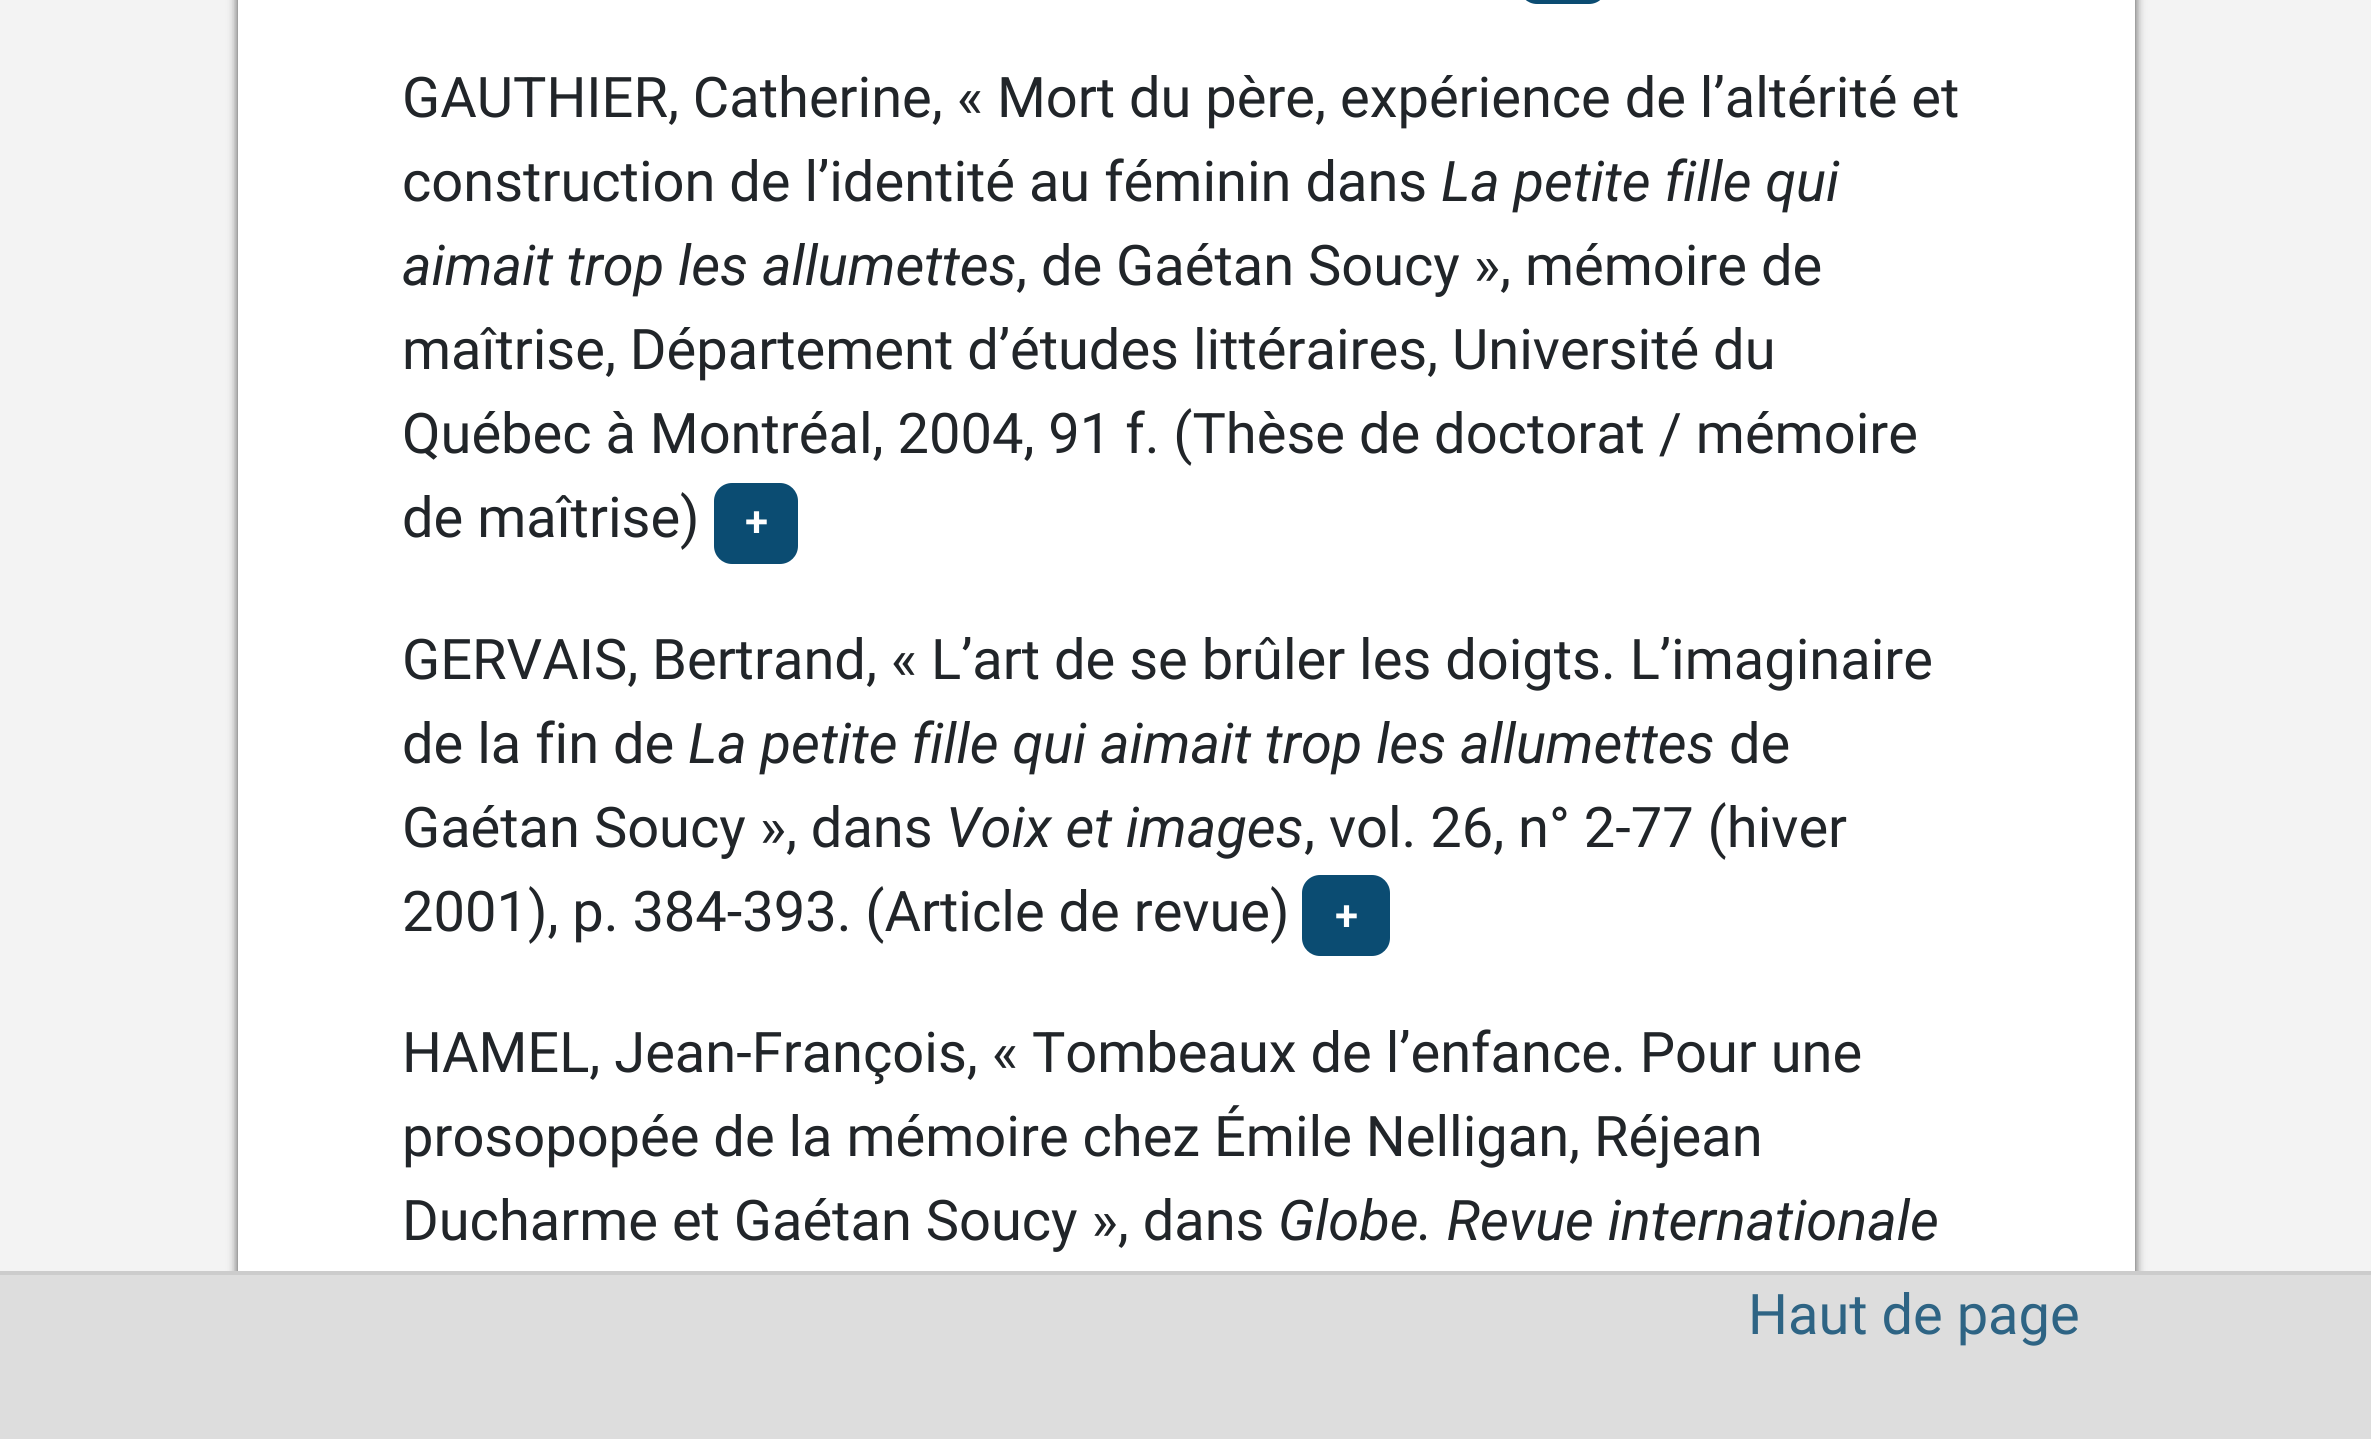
#include <cairo/cairo.h>
#include <math.h>
#include <stddef.h>


static void rounded_rect(cairo_t *cr, double x, double y, double w, double h, double r) {
  cairo_new_sub_path(cr);
  cairo_arc(cr, x + w - r, y + h - r, r, 0, M_PI / 2);
  cairo_arc(cr, x + r, y + h - r, r, M_PI / 2, M_PI);
  cairo_arc(cr, x + r, y + r, r, M_PI, 1.5 * M_PI);
  cairo_arc(cr, x + w - r, y + r, r, 1.5 * M_PI, 2 * M_PI);
  cairo_close_path(cr);
}

static void draw_shadow(cairo_t *cr, double x, double y, double w, double h, double r, double blur, double alpha) {
  cairo_push_group_with_content(cr, CAIRO_CONTENT_ALPHA);
  cairo_set_operator(cr, CAIRO_OPERATOR_SOURCE);
  for (int i = 15; i >= -15 && fmin(w, h) + blur * i / 3 > 0; i -= 2) {
    double e = blur * i / 6;
    cairo_set_source_rgba(cr, 0, 0, 0, alpha * erfc((i - 1) / 8.5) / 2);
    rounded_rect(cr, x - e, y - e, w + 2 * e, h + 2 * e, fmax(0, fmin(r + e + blur * .6, fmin(w, h) / 2 + e)));
    cairo_fill(cr);
  }
  cairo_pattern_t *soft = cairo_pop_group(cr);
  cairo_mask(cr, soft);
  cairo_pattern_destroy(soft);
}

static void draw(cairo_t *cr) {
  cairo_set_source_rgb(cr, 243 / 255.0, 243 / 255.0, 243 / 255.0);
  cairo_paint(cr);
  cairo_set_source_rgb(cr, 68 / 255.0, 68 / 255.0, 68 / 255.0);
  draw_shadow(cr, 238, -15, 1897, 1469, 0, 5, 1);
  cairo_set_source_rgb(cr, 1, 1, 1);
  cairo_rectangle(cr, 238, 0, 1897, 1271);
  cairo_fill(cr);
  rounded_rect(cr, 1521, -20, 84, 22, 16);
  cairo_set_source_rgb(cr, 11 / 255.0, 76 / 255.0, 114 / 255.0);
  cairo_set_line_width(cr, 4);
  cairo_stroke(cr);
  rounded_rect(cr, 716, 485, 80, 77, 16);
  cairo_fill_preserve(cr);
  cairo_stroke(cr);
  rounded_rect(cr, 1304, 877, 84, 77, 16);
  cairo_fill_preserve(cr);
  cairo_stroke(cr);
  cairo_set_source_rgb(cr, 221 / 255.0, 221 / 255.0, 221 / 255.0);
  cairo_rectangle(cr, 0, 1275, 2371, 164);
  cairo_fill(cr);
  cairo_set_source_rgb(cr, 204 / 255.0, 204 / 255.0, 204 / 255.0);
  cairo_rectangle(cr, 0, 1271, 2371, 4);
  cairo_fill(cr);
  cairo_select_font_face(cr, "Roboto", CAIRO_FONT_SLANT_NORMAL, CAIRO_FONT_WEIGHT_NORMAL);
  cairo_set_font_size(cr, 56);
  cairo_set_source_rgb(cr, 33 / 255.0, 37 / 255.0, 41 / 255.0);
  cairo_move_to(cr, 402, 117);
  cairo_show_text(cr, "GAUTHIER, Catherine, « Mort du père, expérience de l’altérité et");
  cairo_move_to(cr, 402, 201);
  cairo_show_text(cr, "construction de l’identité au féminin dans");
  cairo_select_font_face(cr, "Roboto", CAIRO_FONT_SLANT_ITALIC, CAIRO_FONT_WEIGHT_NORMAL);
  cairo_move_to(cr, 1441, 201);
  cairo_show_text(cr, "La petite fille qui");
  cairo_move_to(cr, 402, 285);
  cairo_show_text(cr, "aimait trop les allumettes");
  cairo_select_font_face(cr, "Roboto", CAIRO_FONT_SLANT_NORMAL, CAIRO_FONT_WEIGHT_NORMAL);
  cairo_move_to(cr, 1016, 285);
  cairo_show_text(cr, ", de Gaétan Soucy », mémoire de");
  cairo_move_to(cr, 402, 369);
  cairo_show_text(cr, "maîtrise, Département d’études littéraires, Université du");
  cairo_move_to(cr, 402, 453);
  cairo_show_text(cr, "Québec à Montréal, 2004, 91 f. (Thèse de doctorat / mémoire");
  cairo_move_to(cr, 402, 537);
  cairo_show_text(cr, "de maîtrise)");
  cairo_select_font_face(cr, "Roboto SemiBold", CAIRO_FONT_SLANT_NORMAL, CAIRO_FONT_WEIGHT_NORMAL);
  cairo_set_font_size(cr, 42);
  cairo_set_source_rgb(cr, 1, 1, 1);
  cairo_move_to(cr, 745, 536);
  cairo_show_text(cr, "+");
  cairo_select_font_face(cr, "Roboto", CAIRO_FONT_SLANT_NORMAL, CAIRO_FONT_WEIGHT_NORMAL);
  cairo_set_font_size(cr, 56);
  cairo_set_source_rgb(cr, 33 / 255.0, 37 / 255.0, 41 / 255.0);
  cairo_move_to(cr, 402, 679);
  cairo_show_text(cr, "GERVAIS, Bertrand, « L’art de se brûler les doigts. L’imaginaire");
  cairo_move_to(cr, 402, 763);
  cairo_show_text(cr, "de la fin de");
  cairo_select_font_face(cr, "Roboto", CAIRO_FONT_SLANT_ITALIC, CAIRO_FONT_WEIGHT_NORMAL);
  cairo_move_to(cr, 688, 763);
  cairo_show_text(cr, "La petite fille qui aimait trop les allumettes");
  cairo_select_font_face(cr, "Roboto", CAIRO_FONT_SLANT_NORMAL, CAIRO_FONT_WEIGHT_NORMAL);
  cairo_move_to(cr, 1729, 763);
  cairo_show_text(cr, "de");
  cairo_move_to(cr, 402, 847);
  cairo_show_text(cr, "Gaétan Soucy », dans");
  cairo_select_font_face(cr, "Roboto", CAIRO_FONT_SLANT_ITALIC, CAIRO_FONT_WEIGHT_NORMAL);
  cairo_move_to(cr, 946, 847);
  cairo_show_text(cr, "Voix et images");
  cairo_select_font_face(cr, "Roboto", CAIRO_FONT_SLANT_NORMAL, CAIRO_FONT_WEIGHT_NORMAL);
  cairo_move_to(cr, 1304, 847);
  cairo_show_text(cr, ", vol. 26, n° 2-77 (hiver");
  cairo_move_to(cr, 402, 931);
  cairo_show_text(cr, "2001), p. 384-393. (Article de revue)");
  cairo_select_font_face(cr, "Roboto SemiBold", CAIRO_FONT_SLANT_NORMAL, CAIRO_FONT_WEIGHT_NORMAL);
  cairo_set_font_size(cr, 42);
  cairo_set_source_rgb(cr, 1, 1, 1);
  cairo_move_to(cr, 1335, 930);
  cairo_show_text(cr, "+");
  cairo_select_font_face(cr, "Roboto", CAIRO_FONT_SLANT_NORMAL, CAIRO_FONT_WEIGHT_NORMAL);
  cairo_set_font_size(cr, 56);
  cairo_set_source_rgb(cr, 33 / 255.0, 37 / 255.0, 41 / 255.0);
  cairo_move_to(cr, 402, 1072);
  cairo_show_text(cr, "HAMEL, Jean-François, « Tombeaux de l’enfance. Pour une");
  cairo_move_to(cr, 402, 1156);
  cairo_show_text(cr, "prosopopée de la mémoire chez Émile Nelligan, Réjean");
  cairo_move_to(cr, 402, 1240);
  cairo_show_text(cr, "Ducharme et Gaétan Soucy », dans");
  cairo_select_font_face(cr, "Roboto", CAIRO_FONT_SLANT_ITALIC, CAIRO_FONT_WEIGHT_NORMAL);
  cairo_move_to(cr, 1278, 1240);
  cairo_show_text(cr, "Globe. Revue internationale");
  cairo_select_font_face(cr, "Roboto", CAIRO_FONT_SLANT_NORMAL, CAIRO_FONT_WEIGHT_NORMAL);
  cairo_set_source_rgb(cr, 46 / 255.0, 100 / 255.0, 132 / 255.0);
  cairo_move_to(cr, 1748, 1334);
  cairo_show_text(cr, "Haut de page");
}

int main(void) {
  cairo_surface_t *surface = cairo_image_surface_create(CAIRO_FORMAT_RGB24, 2371, 1439);
  cairo_t *cr = cairo_create(surface);
  cairo_font_options_t *options = cairo_font_options_create();
  cairo_font_options_set_hint_metrics(options, CAIRO_HINT_METRICS_OFF);
  cairo_font_options_set_hint_style(options, CAIRO_HINT_STYLE_NONE);
  cairo_set_font_options(cr, options);
  cairo_set_miter_limit(cr, 4);
  draw(cr);
  cairo_surface_write_to_png(surface, "out.png");
  cairo_font_options_destroy(options);
  cairo_destroy(cr);
  cairo_surface_destroy(surface);
  return 0;
}
